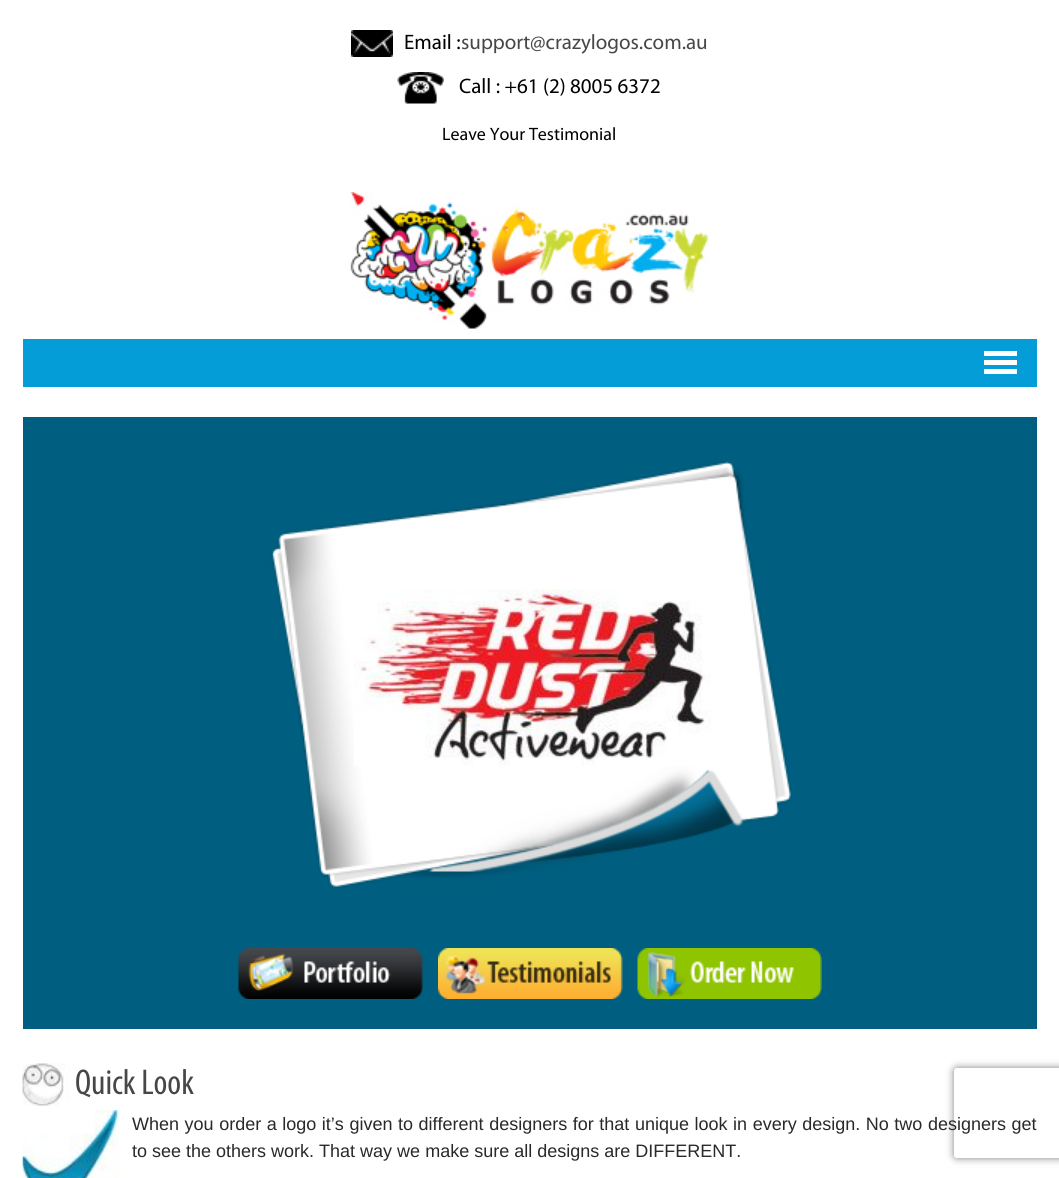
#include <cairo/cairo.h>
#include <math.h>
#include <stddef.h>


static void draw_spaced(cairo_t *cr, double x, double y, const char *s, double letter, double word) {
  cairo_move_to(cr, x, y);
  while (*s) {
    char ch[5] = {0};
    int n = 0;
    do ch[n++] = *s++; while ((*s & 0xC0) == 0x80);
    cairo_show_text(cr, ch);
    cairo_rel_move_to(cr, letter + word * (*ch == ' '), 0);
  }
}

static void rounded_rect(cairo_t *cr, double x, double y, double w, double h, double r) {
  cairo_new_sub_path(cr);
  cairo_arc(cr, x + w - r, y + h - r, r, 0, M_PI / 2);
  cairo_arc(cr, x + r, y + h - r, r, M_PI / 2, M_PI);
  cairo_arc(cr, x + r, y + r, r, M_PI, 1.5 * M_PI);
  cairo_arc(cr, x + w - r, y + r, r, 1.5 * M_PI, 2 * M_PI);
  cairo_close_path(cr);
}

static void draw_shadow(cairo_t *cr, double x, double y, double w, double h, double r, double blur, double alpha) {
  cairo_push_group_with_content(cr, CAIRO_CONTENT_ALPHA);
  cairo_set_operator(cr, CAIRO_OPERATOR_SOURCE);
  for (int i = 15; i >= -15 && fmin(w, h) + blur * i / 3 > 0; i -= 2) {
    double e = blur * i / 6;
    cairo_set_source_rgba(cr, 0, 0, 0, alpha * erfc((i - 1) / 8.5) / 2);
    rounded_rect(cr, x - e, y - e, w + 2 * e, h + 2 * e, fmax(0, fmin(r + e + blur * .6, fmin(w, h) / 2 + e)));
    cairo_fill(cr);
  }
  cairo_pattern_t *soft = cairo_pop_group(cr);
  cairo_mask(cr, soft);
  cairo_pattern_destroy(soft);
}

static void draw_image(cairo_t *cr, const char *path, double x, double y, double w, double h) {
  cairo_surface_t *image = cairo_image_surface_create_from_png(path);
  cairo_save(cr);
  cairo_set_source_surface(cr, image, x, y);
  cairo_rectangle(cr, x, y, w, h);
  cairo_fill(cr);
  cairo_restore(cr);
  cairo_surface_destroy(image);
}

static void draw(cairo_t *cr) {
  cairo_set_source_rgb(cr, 1, 1, 1);
  cairo_paint(cr);
  draw_image(cr, "images/1.png", 351, 30, 42, 27);
  draw_image(cr, "images/2.png", 397, 72, 47, 32);
  draw_image(cr, "images/3.png", 350, 192, 359, 137);
  cairo_set_source_rgb(cr, 4 / 255.0, 157 / 255.0, 215 / 255.0);
  cairo_rectangle(cr, 23, 339, 1014, 48);
  cairo_fill(cr);
  cairo_set_source_rgb(cr, 1, 1, 1);
  cairo_rectangle(cr, 984, 351, 33, 5);
  cairo_fill(cr);
  cairo_rectangle(cr, 984, 360, 33, 5);
  cairo_fill(cr);
  cairo_rectangle(cr, 984, 369, 33, 5);
  cairo_fill(cr);
  cairo_set_source_rgb(cr, 0, 94 / 255.0, 128 / 255.0);
  cairo_rectangle(cr, 23, 417, 1014, 612);
  cairo_fill(cr);
  draw_image(cr, "images/4.png", 271, 462, 521, 426);
  draw_image(cr, "images/5.png", 354, 589, 357, 177);
  draw_image(cr, "images/6.png", 238, 948, 185, 51);
  draw_image(cr, "images/7.png", 438, 948, 185, 51);
  draw_image(cr, "images/8.png", 637, 948, 185, 51);
  draw_image(cr, "images/9.png", 22, 1063, 48, 43);
  draw_image(cr, "images/10.png", 22, 1110, 98, 68);
  cairo_save(cr);
  cairo_set_fill_rule(cr, CAIRO_FILL_RULE_EVEN_ODD);
  cairo_new_path(cr);
  cairo_move_to(cr, 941, 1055);
  cairo_line_to(cr, 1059, 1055);
  cairo_line_to(cr, 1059, 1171);
  cairo_line_to(cr, 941, 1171);
  cairo_close_path(cr);
  cairo_move_to(cr, 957, 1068);
  cairo_line_to(cr, 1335, 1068);
  cairo_curve_to(cr, 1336.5, 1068, 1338, 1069.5, 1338, 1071);
  cairo_line_to(cr, 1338, 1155);
  cairo_curve_to(cr, 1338, 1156.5, 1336.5, 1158, 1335, 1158);
  cairo_line_to(cr, 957, 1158);
  cairo_curve_to(cr, 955.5, 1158, 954, 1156.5, 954, 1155);
  cairo_line_to(cr, 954, 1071);
  cairo_curve_to(cr, 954, 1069.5, 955.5, 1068, 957, 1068);
  cairo_close_path(cr);
  cairo_clip(cr);
  cairo_set_source_rgb(cr, 128 / 255.0, 128 / 255.0, 128 / 255.0);
  draw_shadow(cr, 954, 1068, 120, 90, 3, 4, 1);
  cairo_restore(cr);
  cairo_select_font_face(cr, "Myriad", CAIRO_FONT_SLANT_NORMAL, CAIRO_FONT_WEIGHT_NORMAL);
  cairo_set_font_size(cr, 21);
  cairo_set_source_rgb(cr, 0, 0, 0);
  cairo_move_to(cr, 404, 49);
  cairo_show_text(cr, "Email :");
  cairo_set_source_rgb(cr, 71 / 255.0, 71 / 255.0, 71 / 255.0);
  cairo_move_to(cr, 461, 49);
  cairo_show_text(cr, "support@crazylogos.com.au");
  cairo_set_source_rgb(cr, 0, 0, 0);
  cairo_move_to(cr, 459, 93);
  cairo_show_text(cr, "Call : +61 (2) 8005 6372");
  cairo_set_font_size(cr, 18);
  cairo_move_to(cr, 442, 140);
  cairo_show_text(cr, "Leave Your Testimonial");
  cairo_select_font_face(cr, "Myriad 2", CAIRO_FONT_SLANT_NORMAL, CAIRO_FONT_WEIGHT_NORMAL);
  cairo_set_font_size(cr, 36);
  cairo_set_source_rgb(cr, 71 / 255.0, 71 / 255.0, 71 / 255.0);
  cairo_move_to(cr, 75, 1094);
  cairo_show_text(cr, "Quick Look");
  cairo_select_font_face(cr, "Liberation Sans", CAIRO_FONT_SLANT_NORMAL, CAIRO_FONT_WEIGHT_NORMAL);
  cairo_set_font_size(cr, 18);
  cairo_set_source_rgb(cr, 41 / 255.0, 41 / 255.0, 41 / 255.0);
  draw_spaced(cr, 132, 1130, "When you order a logo it’s given to different designers for that unique look in every design. No two designers get", 0, 0.55);
  cairo_move_to(cr, 132, 1157);
  cairo_show_text(cr, "to see the others work. That way we make sure all designs are DIFFERENT.");
}

int main(void) {
  cairo_surface_t *surface = cairo_image_surface_create(CAIRO_FORMAT_RGB24, 1059, 1178);
  cairo_t *cr = cairo_create(surface);
  cairo_font_options_t *options = cairo_font_options_create();
  cairo_font_options_set_hint_metrics(options, CAIRO_HINT_METRICS_OFF);
  cairo_font_options_set_hint_style(options, CAIRO_HINT_STYLE_NONE);
  cairo_set_font_options(cr, options);
  cairo_set_miter_limit(cr, 4);
  draw(cr);
  cairo_surface_write_to_png(surface, "out.png");
  cairo_font_options_destroy(options);
  cairo_destroy(cr);
  cairo_surface_destroy(surface);
  return 0;
}
